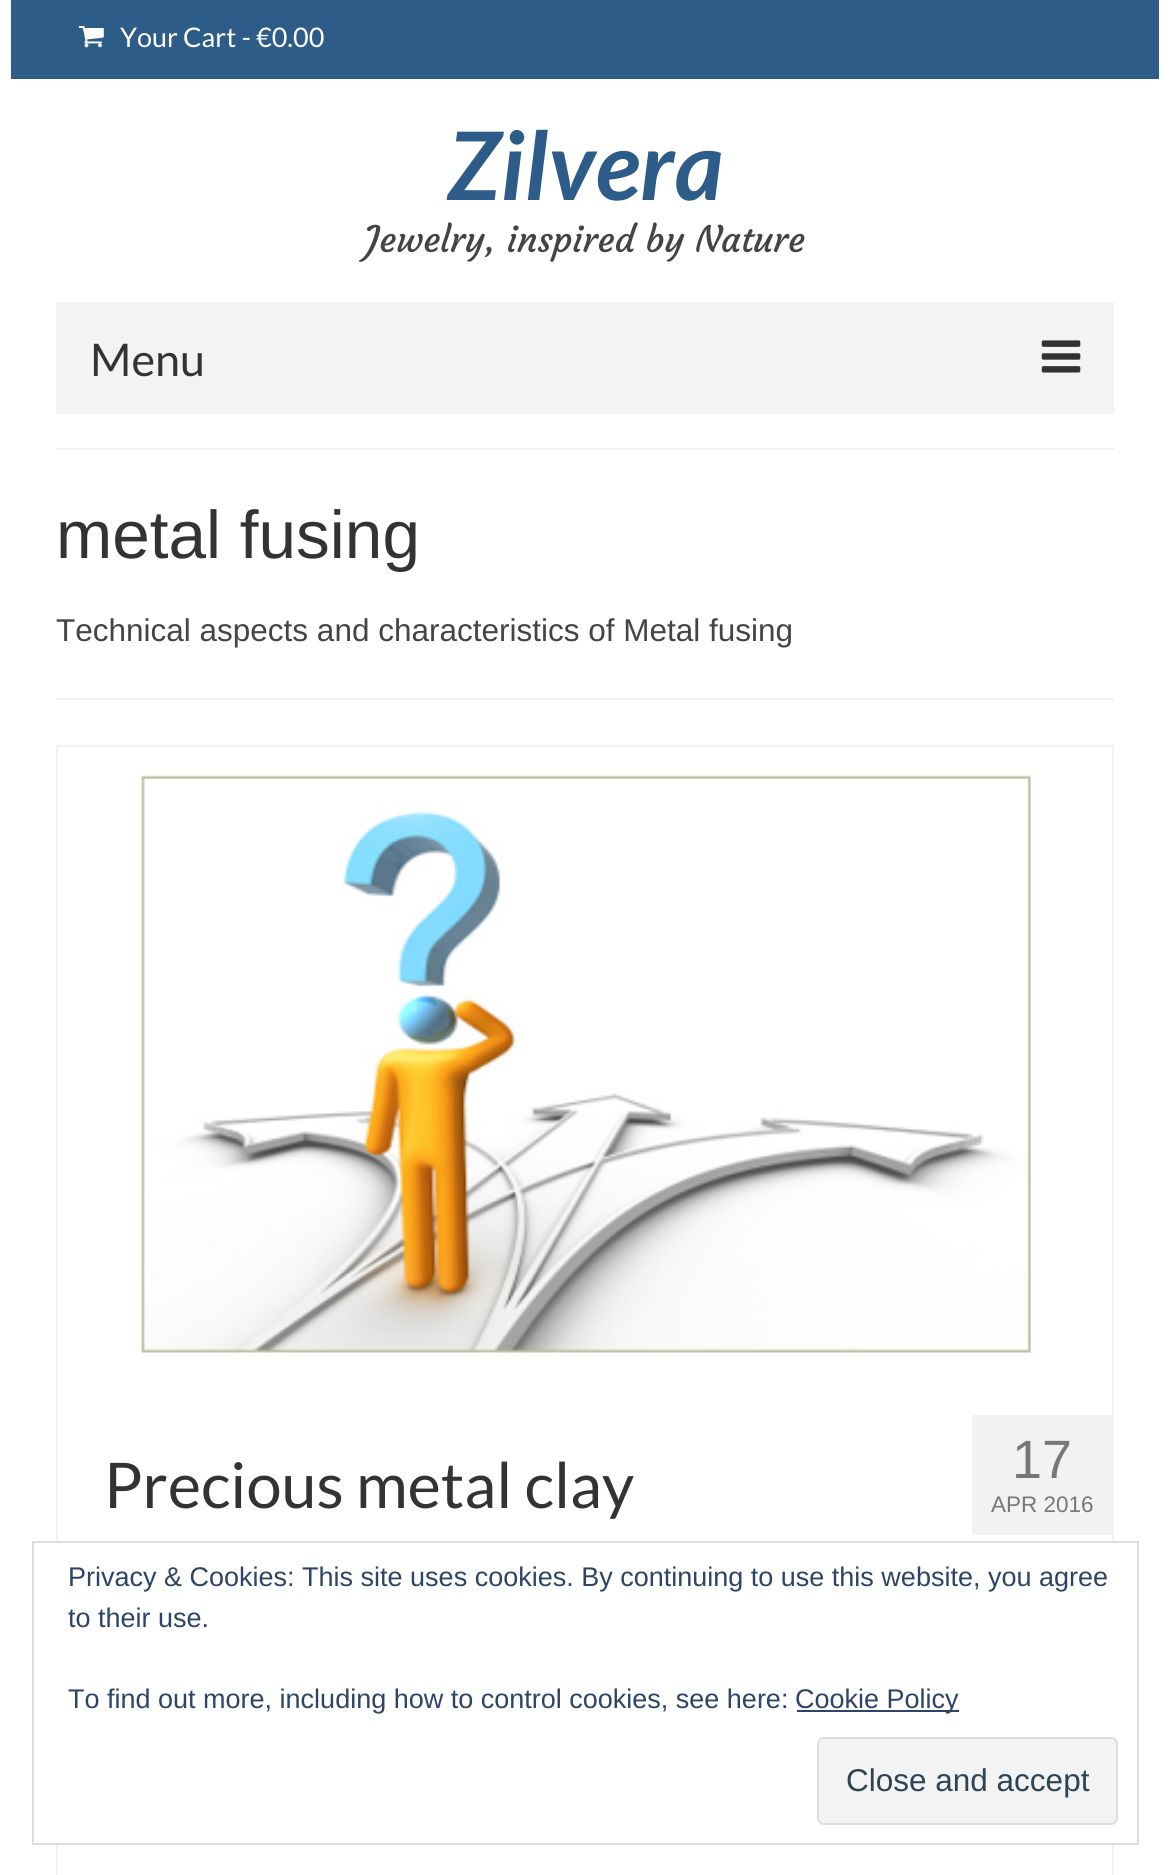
#include <cairo/cairo.h>
#include <math.h>
#include <stddef.h>


static void rounded_rect(cairo_t *cr, double x, double y, double w, double h, double r) {
  cairo_new_sub_path(cr);
  cairo_arc(cr, x + w - r, y + h - r, r, 0, M_PI / 2);
  cairo_arc(cr, x + r, y + h - r, r, M_PI / 2, M_PI);
  cairo_arc(cr, x + r, y + r, r, M_PI, 1.5 * M_PI);
  cairo_arc(cr, x + w - r, y + r, r, 1.5 * M_PI, 2 * M_PI);
  cairo_close_path(cr);
}

static void draw_image(cairo_t *cr, const char *path, double x, double y, double w, double h) {
  cairo_surface_t *image = cairo_image_surface_create_from_png(path);
  cairo_save(cr);
  cairo_set_source_surface(cr, image, x, y);
  cairo_rectangle(cr, x, y, w, h);
  cairo_fill(cr);
  cairo_restore(cr);
  cairo_surface_destroy(image);
}

static void draw(cairo_t *cr) {
  cairo_set_source_rgb(cr, 1, 1, 1);
  cairo_paint(cr);
  cairo_set_source_rgb(cr, 45 / 255.0, 92 / 255.0, 136 / 255.0);
  cairo_rectangle(cr, 11, 0, 1148, 79);
  cairo_fill(cr);
  draw_image(cr, "images/1.png", 78, 26, 26, 22);
  cairo_set_source_rgb(cr, 243 / 255.0, 243 / 255.0, 243 / 255.0);
  cairo_rectangle(cr, 56, 302, 1058, 112);
  cairo_fill(cr);
  draw_image(cr, "images/2.png", 1041, 340, 40, 33);
  cairo_set_source_rgb(cr, 242 / 255.0, 242 / 255.0, 242 / 255.0);
  cairo_rectangle(cr, 56, 448, 1058, 2);
  cairo_fill(cr);
  cairo_rectangle(cr, 56, 698, 1058, 2);
  cairo_fill(cr);
  cairo_rectangle(cr, 57, 746, 1056, 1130);
  cairo_stroke(cr);
  draw_image(cr, "images/3.png", 141, 768, 893, 586);
  cairo_rectangle(cr, 972, 1415, 140, 120);
  cairo_fill(cr);
  cairo_set_source_rgb(cr, 1, 1, 1);
  cairo_rectangle(cr, 56, 1543, 1058, 300);
  cairo_fill(cr);
  cairo_rectangle(cr, 33, 1542, 1105, 302);
  cairo_set_source_rgb(cr, 222 / 255.0, 222 / 255.0, 222 / 255.0);
  cairo_stroke(cr);
  cairo_set_source_rgb(cr, 46 / 255.0, 68 / 255.0, 103 / 255.0);
  cairo_rectangle(cr, 797, 1710, 162, 2);
  cairo_fill(cr);
  cairo_set_source_rgb(cr, 243 / 255.0, 243 / 255.0, 243 / 255.0);
  rounded_rect(cr, 818, 1738, 299, 86, 6);
  cairo_fill_preserve(cr);
  cairo_set_source_rgb(cr, 222 / 255.0, 222 / 255.0, 222 / 255.0);
  cairo_stroke(cr);
  cairo_select_font_face(cr, "Lato", CAIRO_FONT_SLANT_NORMAL, CAIRO_FONT_WEIGHT_NORMAL);
  cairo_set_font_size(cr, 27);
  cairo_set_source_rgb(cr, 1, 1, 1);
  cairo_move_to(cr, 120, 47);
  cairo_show_text(cr, "Your Cart - €0.00");
  cairo_select_font_face(cr, "Lato", CAIRO_FONT_SLANT_ITALIC, CAIRO_FONT_WEIGHT_BOLD);
  cairo_set_font_size(cr, 94.5);
  cairo_set_source_rgb(cr, 45 / 255.0, 92 / 255.0, 136 / 255.0);
  cairo_move_to(cr, 447, 200);
  cairo_show_text(cr, "Zilvera");
  cairo_select_font_face(cr, "Courgette", CAIRO_FONT_SLANT_NORMAL, CAIRO_FONT_WEIGHT_NORMAL);
  cairo_set_font_size(cr, 36);
  cairo_set_source_rgb(cr, 68 / 255.0, 68 / 255.0, 68 / 255.0);
  cairo_move_to(cr, 365, 252);
  cairo_show_text(cr, "Jewelry, inspired by Nature");
  cairo_select_font_face(cr, "Lato", CAIRO_FONT_SLANT_NORMAL, CAIRO_FONT_WEIGHT_NORMAL);
  cairo_set_font_size(cr, 45);
  cairo_set_source_rgb(cr, 51 / 255.0, 51 / 255.0, 51 / 255.0);
  cairo_move_to(cr, 90, 376);
  cairo_show_text(cr, "Menu");
  cairo_select_font_face(cr, "Liberation Sans", CAIRO_FONT_SLANT_NORMAL, CAIRO_FONT_WEIGHT_NORMAL);
  cairo_set_font_size(cr, 67.5);
  cairo_move_to(cr, 56, 558);
  cairo_show_text(cr, "metal fusing");
  cairo_set_font_size(cr, 31.5);
  cairo_set_source_rgb(cr, 68 / 255.0, 68 / 255.0, 68 / 255.0);
  cairo_move_to(cr, 56, 641);
  cairo_show_text(cr, "Technical aspects and characteristics of Metal fusing");
  cairo_select_font_face(cr, "Lato", CAIRO_FONT_SLANT_NORMAL, CAIRO_FONT_WEIGHT_NORMAL);
  cairo_set_font_size(cr, 63);
  cairo_set_source_rgb(cr, 51 / 255.0, 51 / 255.0, 51 / 255.0);
  cairo_move_to(cr, 104, 1508);
  cairo_show_text(cr, "Precious metal clay");
  cairo_select_font_face(cr, "Liberation Sans", CAIRO_FONT_SLANT_NORMAL, CAIRO_FONT_WEIGHT_NORMAL);
  cairo_set_font_size(cr, 54);
  cairo_set_source_rgb(cr, 119 / 255.0, 119 / 255.0, 119 / 255.0);
  cairo_move_to(cr, 1012, 1478);
  cairo_show_text(cr, "17");
  cairo_set_font_size(cr, 22.5);
  cairo_move_to(cr, 991, 1512);
  cairo_show_text(cr, "APR 2016");
  cairo_set_font_size(cr, 27);
  cairo_set_source_rgb(cr, 46 / 255.0, 68 / 255.0, 103 / 255.0);
  cairo_move_to(cr, 68, 1586);
  cairo_show_text(cr, "Privacy & Cookies: This site uses cookies. By continuing to use this website, you agree");
  cairo_move_to(cr, 68, 1627);
  cairo_show_text(cr, "to their use.");
  cairo_move_to(cr, 68, 1708);
  cairo_show_text(cr, "To find out more, including how to control cookies, see here:");
  cairo_move_to(cr, 795, 1708);
  cairo_show_text(cr, "Cookie Policy");
  cairo_set_font_size(cr, 31.5);
  cairo_set_source_rgb(cr, 46 / 255.0, 68 / 255.0, 83 / 255.0);
  cairo_move_to(cr, 846, 1791);
  cairo_show_text(cr, "Close and accept");
}

int main(void) {
  cairo_surface_t *surface = cairo_image_surface_create(CAIRO_FORMAT_RGB24, 1170, 1875);
  cairo_t *cr = cairo_create(surface);
  cairo_font_options_t *options = cairo_font_options_create();
  cairo_font_options_set_hint_metrics(options, CAIRO_HINT_METRICS_OFF);
  cairo_font_options_set_hint_style(options, CAIRO_HINT_STYLE_NONE);
  cairo_set_font_options(cr, options);
  cairo_set_miter_limit(cr, 4);
  draw(cr);
  cairo_surface_write_to_png(surface, "out.png");
  cairo_font_options_destroy(options);
  cairo_destroy(cr);
  cairo_surface_destroy(surface);
  return 0;
}
